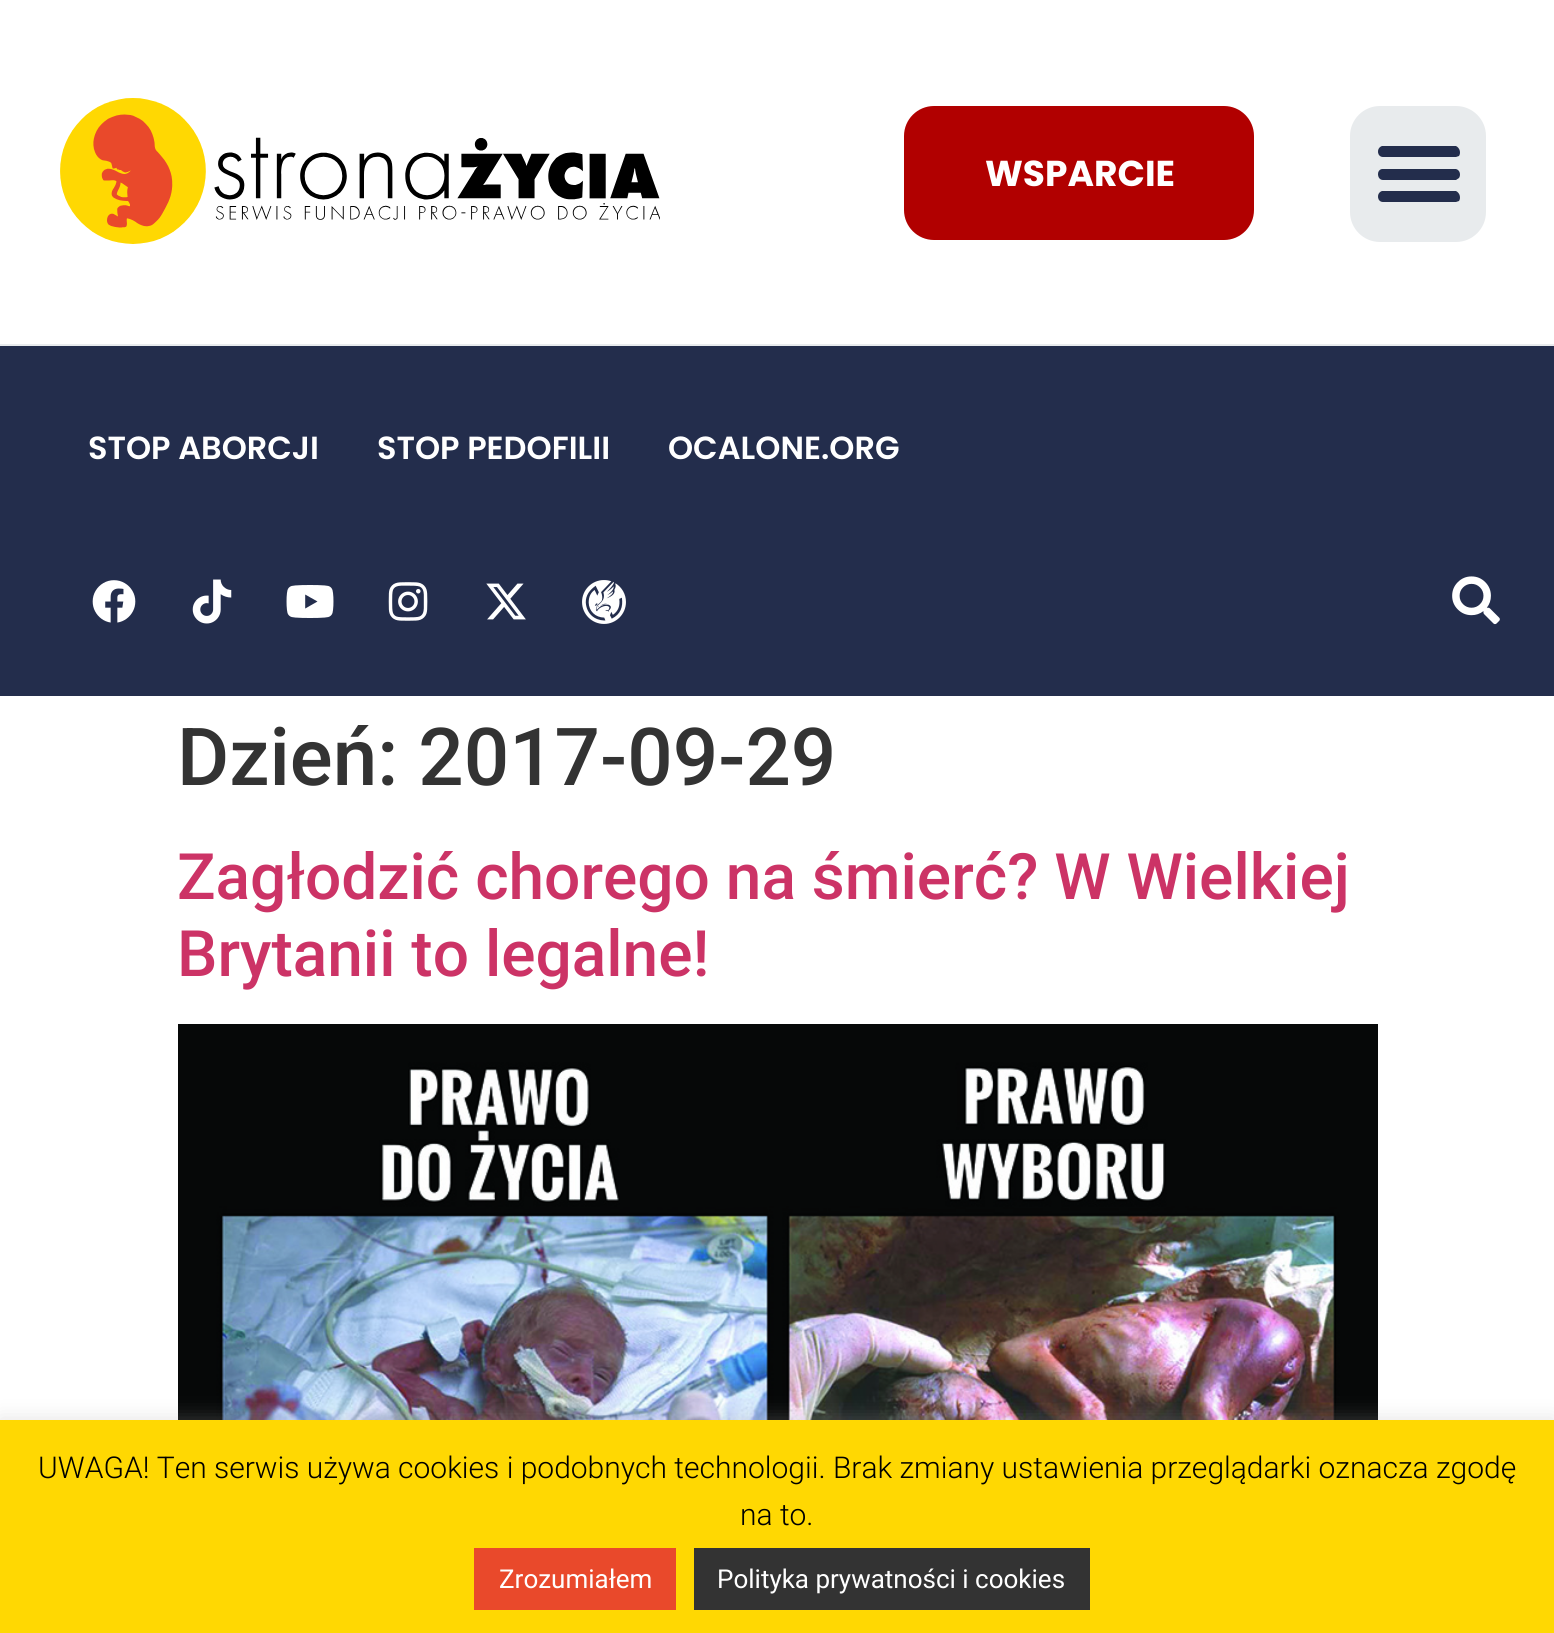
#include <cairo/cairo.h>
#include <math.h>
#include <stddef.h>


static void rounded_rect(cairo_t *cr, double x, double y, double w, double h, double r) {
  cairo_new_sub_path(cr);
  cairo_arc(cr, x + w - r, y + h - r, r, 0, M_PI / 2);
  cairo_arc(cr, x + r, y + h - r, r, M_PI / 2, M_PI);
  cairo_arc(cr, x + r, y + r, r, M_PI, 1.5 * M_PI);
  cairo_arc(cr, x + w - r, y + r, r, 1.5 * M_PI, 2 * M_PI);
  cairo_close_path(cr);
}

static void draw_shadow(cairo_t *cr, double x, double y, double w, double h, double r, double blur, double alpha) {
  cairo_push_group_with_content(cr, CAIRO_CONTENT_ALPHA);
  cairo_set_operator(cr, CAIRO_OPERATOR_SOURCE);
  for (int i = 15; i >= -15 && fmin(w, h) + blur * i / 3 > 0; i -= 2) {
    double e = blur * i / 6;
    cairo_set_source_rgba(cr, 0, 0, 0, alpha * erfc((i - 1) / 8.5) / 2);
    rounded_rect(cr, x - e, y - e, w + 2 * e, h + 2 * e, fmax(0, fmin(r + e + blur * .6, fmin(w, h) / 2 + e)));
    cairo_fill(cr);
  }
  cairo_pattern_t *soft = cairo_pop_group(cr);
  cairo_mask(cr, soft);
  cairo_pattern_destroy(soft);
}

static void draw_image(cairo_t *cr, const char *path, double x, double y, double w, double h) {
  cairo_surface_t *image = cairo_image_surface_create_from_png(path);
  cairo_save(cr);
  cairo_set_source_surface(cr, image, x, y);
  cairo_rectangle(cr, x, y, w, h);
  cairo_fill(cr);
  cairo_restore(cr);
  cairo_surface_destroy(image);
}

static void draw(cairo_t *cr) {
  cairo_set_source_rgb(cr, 1, 1, 1);
  cairo_paint(cr);
  cairo_set_source_rgb(cr, 232 / 255.0, 235 / 255.0, 237 / 255.0);
  cairo_rectangle(cr, 0, 344, 1554, 2);
  cairo_fill(cr);
  draw_image(cr, "images/1.png", 60, 98, 600, 146);
  cairo_set_source_rgb(cr, 177 / 255.0, 0, 0);
  rounded_rect(cr, 904, 106, 350, 134, 30);
  cairo_fill(cr);
  cairo_set_source_rgb(cr, 232 / 255.0, 235 / 255.0, 237 / 255.0);
  rounded_rect(cr, 1350, 106, 136, 136, 30);
  cairo_fill(cr);
  cairo_set_source_rgb(cr, 35 / 255.0, 45 / 255.0, 76 / 255.0);
  cairo_new_path(cr);
  cairo_move_to(cr, 1383, 157);
  cairo_line_to(cr, 1456, 157);
  cairo_line_to(cr, 1459, 156);
  cairo_curve_to(cr, 1461, 153, 1460, 148, 1456, 146);
  cairo_line_to(cr, 1382, 146);
  cairo_curve_to(cr, 1376, 148, 1377, 157, 1383, 157);
  cairo_close_path(cr);
  cairo_move_to(cr, 1383, 180);
  cairo_line_to(cr, 1456, 180);
  cairo_line_to(cr, 1459, 178);
  cairo_curve_to(cr, 1461, 175, 1460, 170, 1456, 169);
  cairo_line_to(cr, 1382, 169);
  cairo_curve_to(cr, 1376, 170, 1377, 180, 1383, 180);
  cairo_close_path(cr);
  cairo_move_to(cr, 1383, 202);
  cairo_line_to(cr, 1456, 202);
  cairo_line_to(cr, 1459, 201);
  cairo_curve_to(cr, 1461, 198, 1460, 193, 1456, 191);
  cairo_line_to(cr, 1382, 191);
  cairo_curve_to(cr, 1376, 193, 1377, 202, 1383, 202);
  cairo_close_path(cr);
  cairo_fill(cr);
  cairo_rectangle(cr, 0, 346, 1554, 350);
  cairo_fill(cr);
  draw_image(cr, "images/2.png", 92, 580, 44, 43);
  draw_image(cr, "images/3.png", 192, 579, 40, 45);
  draw_image(cr, "images/4.png", 286, 585, 48, 33);
  draw_image(cr, "images/5.png", 388, 582, 40, 39);
  draw_image(cr, "images/6.png", 486, 583, 40, 37);
  draw_image(cr, "images/7.png", 582, 580, 44, 44);
  draw_image(cr, "images/8.png", 1452, 576, 48, 49);
  draw_image(cr, "images/9.png", 178, 1024, 1200, 396);
  cairo_set_source_rgb(cr, 172 / 255.0, 171 / 255.0, 171 / 255.0);
  draw_shadow(cr, 0, 1418, 1554, 214, 0, 10, 0.3);
  cairo_set_source_rgb(cr, 1, 216 / 255.0, 2 / 255.0);
  cairo_rectangle(cr, 0, 1420, 1554, 213);
  cairo_fill(cr);
  cairo_set_source_rgb(cr, 233 / 255.0, 73 / 255.0, 43 / 255.0);
  cairo_rectangle(cr, 474, 1548, 202, 62);
  cairo_fill(cr);
  cairo_set_source_rgb(cr, 51 / 255.0, 51 / 255.0, 51 / 255.0);
  cairo_rectangle(cr, 694, 1548, 396, 62);
  cairo_fill(cr);
  cairo_select_font_face(cr, "Poppins", CAIRO_FONT_SLANT_NORMAL, CAIRO_FONT_WEIGHT_BOLD);
  cairo_set_font_size(cr, 36);
  cairo_set_source_rgb(cr, 1, 1, 1);
  cairo_move_to(cr, 985, 186);
  cairo_show_text(cr, "WSPARCIE");
  cairo_select_font_face(cr, "Poppins SemiBold", CAIRO_FONT_SLANT_NORMAL, CAIRO_FONT_WEIGHT_NORMAL);
  cairo_set_font_size(cr, 32);
  cairo_move_to(cr, 88, 459);
  cairo_show_text(cr, "STOP ABORCJI");
  cairo_move_to(cr, 377, 459);
  cairo_show_text(cr, "STOP PEDOFILII");
  cairo_move_to(cr, 668, 459);
  cairo_show_text(cr, "OCALONE.ORG");
  cairo_select_font_face(cr, "Roboto Medium", CAIRO_FONT_SLANT_NORMAL, CAIRO_FONT_WEIGHT_NORMAL);
  cairo_set_font_size(cr, 80);
  cairo_set_source_rgb(cr, 51 / 255.0, 51 / 255.0, 51 / 255.0);
  cairo_move_to(cr, 177, 785);
  cairo_show_text(cr, "Dzień: 2017-09-29");
  cairo_set_font_size(cr, 64);
  cairo_set_source_rgb(cr, 204 / 255.0, 51 / 255.0, 102 / 255.0);
  cairo_move_to(cr, 177, 899);
  cairo_show_text(cr, "Zagłodzić chorego na śmierć? W Wielkiej");
  cairo_move_to(cr, 177, 976);
  cairo_show_text(cr, "Brytanii to legalne!");
  cairo_select_font_face(cr, "Roboto Light", CAIRO_FONT_SLANT_NORMAL, CAIRO_FONT_WEIGHT_NORMAL);
  cairo_set_font_size(cr, 30);
  cairo_set_source_rgb(cr, 0, 0, 0);
  cairo_move_to(cr, 38, 1478);
  cairo_show_text(cr, "UWAGA! Ten serwis używa cookies i podobnych technologii. Brak zmiany ustawienia przeglądarki oznacza zgodę");
  cairo_move_to(cr, 740, 1525);
  cairo_show_text(cr, "na to.");
  cairo_select_font_face(cr, "Roboto", CAIRO_FONT_SLANT_NORMAL, CAIRO_FONT_WEIGHT_NORMAL);
  cairo_set_font_size(cr, 26);
  cairo_set_source_rgb(cr, 1, 1, 1);
  cairo_move_to(cr, 499, 1588);
  cairo_show_text(cr, "Zrozumiałem");
  cairo_move_to(cr, 717, 1588);
  cairo_show_text(cr, "Polityka prywatności i cookies");
}

int main(void) {
  cairo_surface_t *surface = cairo_image_surface_create(CAIRO_FORMAT_RGB24, 1554, 1633);
  cairo_t *cr = cairo_create(surface);
  cairo_font_options_t *options = cairo_font_options_create();
  cairo_font_options_set_hint_metrics(options, CAIRO_HINT_METRICS_OFF);
  cairo_font_options_set_hint_style(options, CAIRO_HINT_STYLE_NONE);
  cairo_set_font_options(cr, options);
  cairo_set_miter_limit(cr, 4);
  draw(cr);
  cairo_surface_write_to_png(surface, "out.png");
  cairo_font_options_destroy(options);
  cairo_destroy(cr);
  cairo_surface_destroy(surface);
  return 0;
}
